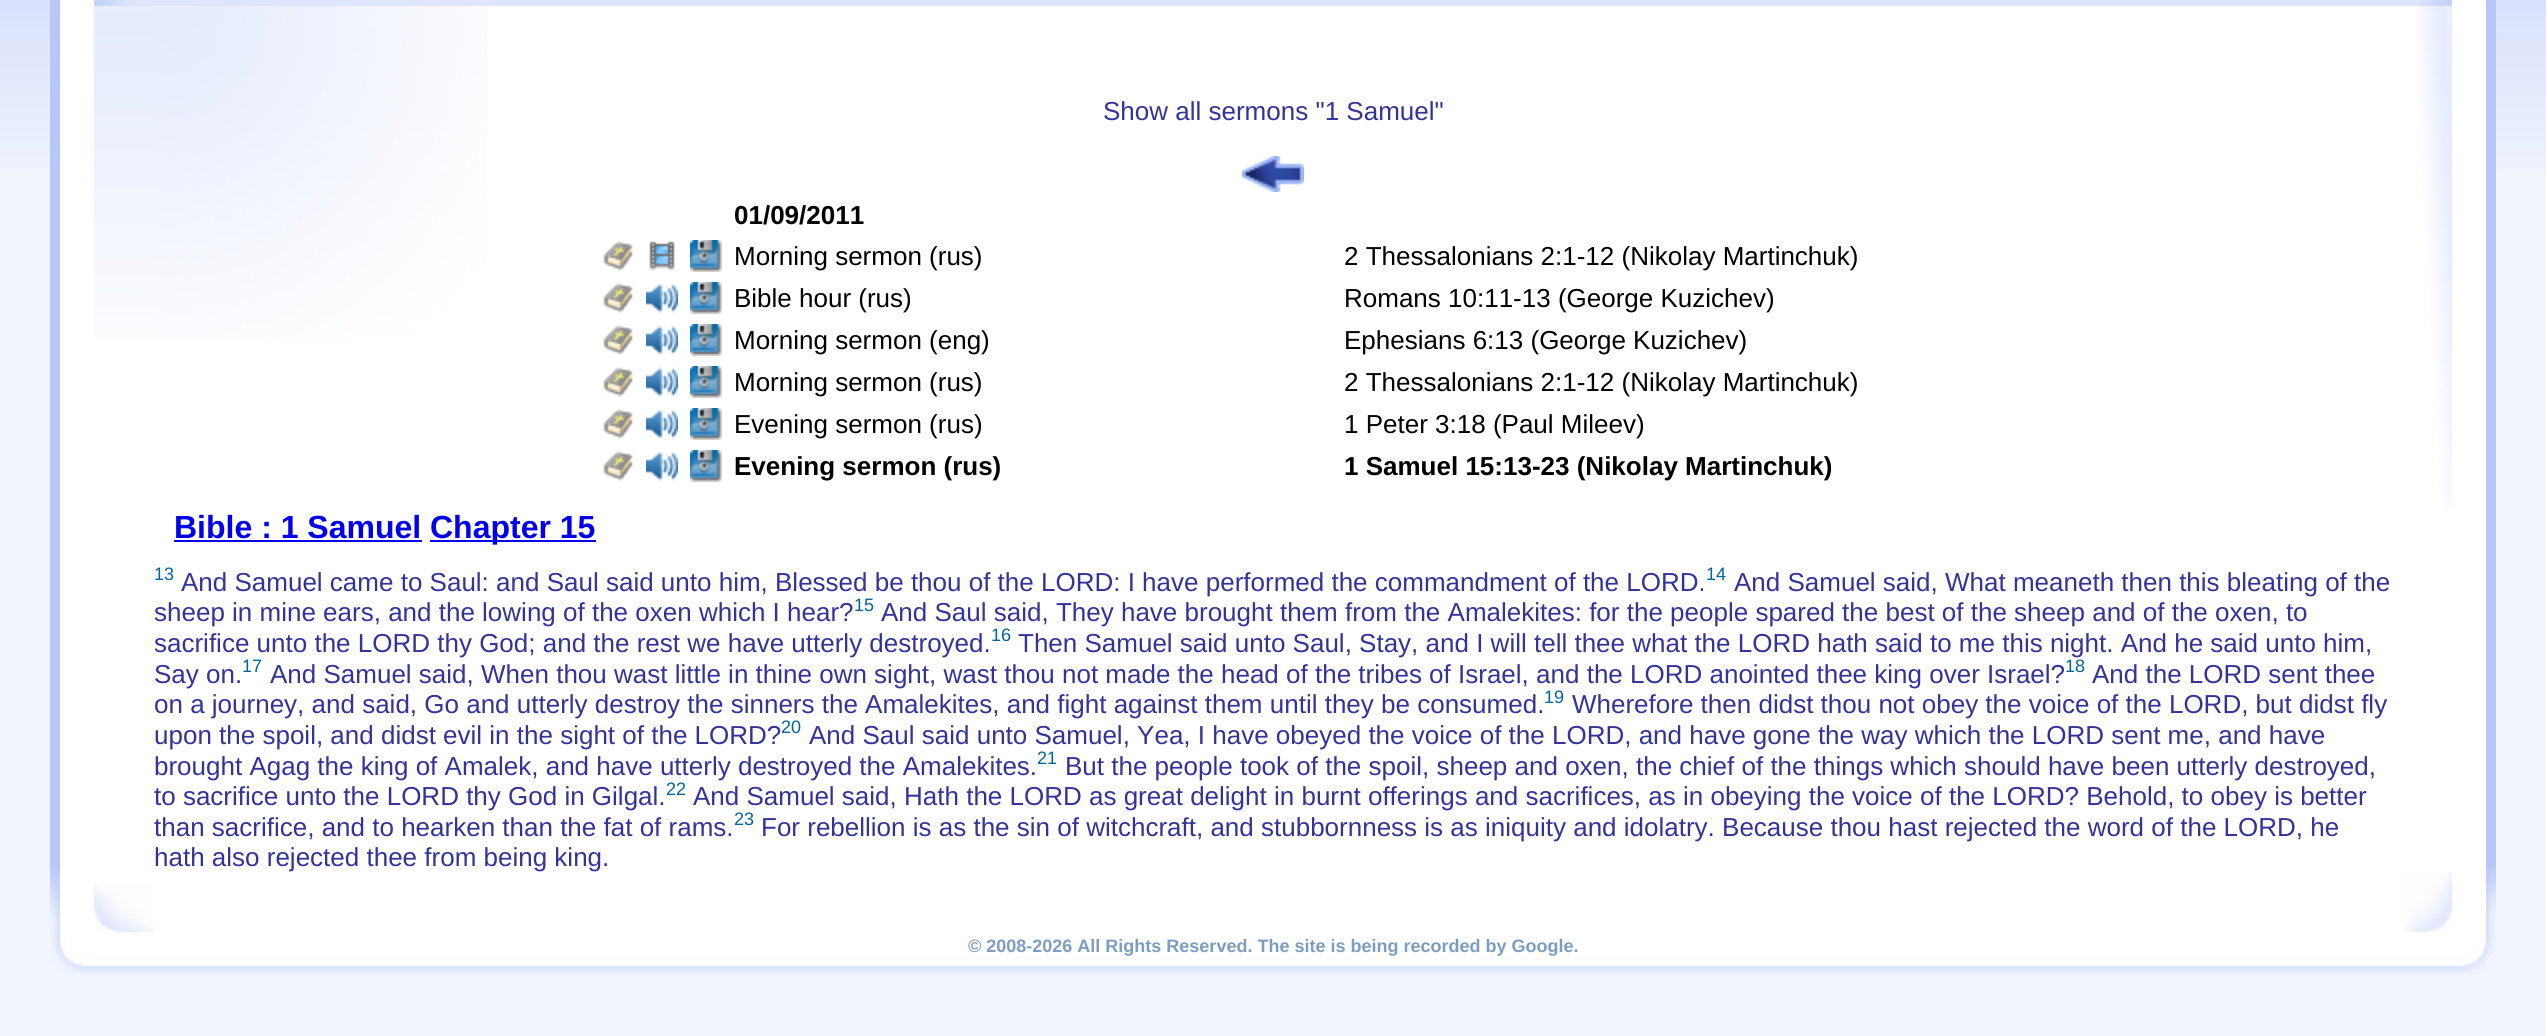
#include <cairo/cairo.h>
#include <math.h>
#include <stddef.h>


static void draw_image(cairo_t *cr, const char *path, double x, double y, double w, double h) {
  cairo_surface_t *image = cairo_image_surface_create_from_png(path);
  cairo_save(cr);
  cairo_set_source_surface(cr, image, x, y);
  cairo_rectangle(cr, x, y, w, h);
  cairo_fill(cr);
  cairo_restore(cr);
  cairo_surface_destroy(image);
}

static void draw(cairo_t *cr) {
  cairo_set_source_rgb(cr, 242 / 255.0, 245 / 255.0, 254 / 255.0);
  cairo_paint(cr);
  draw_image(cr, "images/1.png", 0, 0, 2546, 169);
  cairo_set_source_rgb(cr, 182 / 255.0, 199 / 255.0, 248 / 255.0);
  cairo_rectangle(cr, 50, 0, 10, 865);
  cairo_fill(cr);
  draw_image(cr, "images/2.png", 50, 865, 10, 71);
  cairo_set_source_rgb(cr, 1, 1, 1);
  cairo_rectangle(cr, 60, 0, 2426, 936);
  cairo_fill(cr);
  draw_image(cr, "images/3.png", 94, 0, 60, 6);
  cairo_set_source_rgb(cr, 222 / 255.0, 229 / 255.0, 253 / 255.0);
  cairo_rectangle(cr, 154, 0, 2265, 6);
  cairo_fill(cr);
  draw_image(cr, "images/4.png", 2419, 0, 33, 6);
  draw_image(cr, "images/5.png", 94, 6, 60, 333);
  draw_image(cr, "images/6.png", 154, 6, 333, 333);
  draw_image(cr, "images/7.png", 1242, 156, 62, 36);
  draw_image(cr, "images/8.png", 603, 241, 30, 30);
  draw_image(cr, "images/9.png", 649, 241, 26, 30);
  draw_image(cr, "images/10.png", 690, 240, 32, 32);
  draw_image(cr, "images/8.png", 603, 283, 30, 30);
  draw_image(cr, "images/11.png", 646, 283, 32, 30);
  draw_image(cr, "images/10.png", 690, 282, 32, 32);
  draw_image(cr, "images/8.png", 603, 325, 30, 30);
  draw_image(cr, "images/11.png", 646, 325, 32, 30);
  draw_image(cr, "images/10.png", 690, 324, 32, 32);
  draw_image(cr, "images/8.png", 603, 367, 30, 30);
  draw_image(cr, "images/11.png", 646, 367, 32, 30);
  draw_image(cr, "images/10.png", 690, 366, 32, 32);
  draw_image(cr, "images/8.png", 603, 409, 30, 30);
  draw_image(cr, "images/11.png", 646, 409, 32, 30);
  draw_image(cr, "images/10.png", 690, 408, 32, 32);
  draw_image(cr, "images/8.png", 603, 451, 30, 30);
  draw_image(cr, "images/11.png", 646, 451, 32, 30);
  draw_image(cr, "images/10.png", 690, 450, 32, 32);
  cairo_set_source_rgb(cr, 0, 0, 238 / 255.0);
  cairo_rectangle(cr, 174, 540, 248, 2);
  cairo_fill(cr);
  cairo_rectangle(cr, 430, 540, 166, 2);
  cairo_fill(cr);
  draw_image(cr, "images/12.png", 2416, 6, 36, 500);
  draw_image(cr, "images/13.png", 94, 884, 60, 48);
  draw_image(cr, "images/14.png", 2404, 872, 48, 60);
  cairo_set_source_rgb(cr, 182 / 255.0, 199 / 255.0, 248 / 255.0);
  cairo_rectangle(cr, 2486, 0, 10, 865);
  cairo_fill(cr);
  draw_image(cr, "images/15.png", 2486, 865, 10, 71);
  draw_image(cr, "images/16.png", 51, 936, 9, 26);
  draw_image(cr, "images/17.png", 60, 936, 30, 39);
  draw_image(cr, "images/18.png", 90, 936, 2366, 39);
  draw_image(cr, "images/19.png", 2456, 936, 30, 39);
  draw_image(cr, "images/20.png", 2486, 936, 10, 25);
  cairo_select_font_face(cr, "Liberation Sans", CAIRO_FONT_SLANT_NORMAL, CAIRO_FONT_WEIGHT_NORMAL);
  cairo_set_font_size(cr, 26);
  cairo_set_source_rgb(cr, 51 / 255.0, 51 / 255.0, 153 / 255.0);
  cairo_move_to(cr, 1103, 120);
  cairo_show_text(cr, "Show all sermons \"1 Samuel\"");
  cairo_select_font_face(cr, "Liberation Sans", CAIRO_FONT_SLANT_NORMAL, CAIRO_FONT_WEIGHT_BOLD);
  cairo_set_source_rgb(cr, 0, 0, 0);
  cairo_move_to(cr, 734, 224);
  cairo_show_text(cr, "01/09/2011");
  cairo_select_font_face(cr, "Liberation Sans", CAIRO_FONT_SLANT_NORMAL, CAIRO_FONT_WEIGHT_NORMAL);
  cairo_move_to(cr, 734, 265);
  cairo_show_text(cr, "Morning sermon (rus)");
  cairo_move_to(cr, 1344, 265);
  cairo_show_text(cr, "2 Thessalonians 2:1-12 (Nikolay Martinchuk)");
  cairo_move_to(cr, 734, 307);
  cairo_show_text(cr, "Bible hour (rus)");
  cairo_move_to(cr, 1344, 307);
  cairo_show_text(cr, "Romans 10:11-13 (George Kuzichev)");
  cairo_move_to(cr, 734, 349);
  cairo_show_text(cr, "Morning sermon (eng)");
  cairo_move_to(cr, 1344, 349);
  cairo_show_text(cr, "Ephesians 6:13 (George Kuzichev)");
  cairo_move_to(cr, 734, 391);
  cairo_show_text(cr, "Morning sermon (rus)");
  cairo_move_to(cr, 1344, 391);
  cairo_show_text(cr, "2 Thessalonians 2:1-12 (Nikolay Martinchuk)");
  cairo_move_to(cr, 734, 433);
  cairo_show_text(cr, "Evening sermon (rus)");
  cairo_move_to(cr, 1344, 433);
  cairo_show_text(cr, "1 Peter 3:18 (Paul Mileev)");
  cairo_select_font_face(cr, "Liberation Sans", CAIRO_FONT_SLANT_NORMAL, CAIRO_FONT_WEIGHT_BOLD);
  cairo_move_to(cr, 734, 475);
  cairo_show_text(cr, "Evening sermon (rus)");
  cairo_move_to(cr, 1344, 475);
  cairo_show_text(cr, "1 Samuel 15:13-23 (Nikolay Martinchuk)");
  cairo_set_font_size(cr, 32);
  cairo_set_source_rgb(cr, 0, 0, 238 / 255.0);
  cairo_move_to(cr, 174, 538);
  cairo_show_text(cr, "Bible : 1 Samuel");
  cairo_move_to(cr, 430, 538);
  cairo_show_text(cr, "Chapter 15");
  cairo_select_font_face(cr, "Liberation Sans", CAIRO_FONT_SLANT_NORMAL, CAIRO_FONT_WEIGHT_NORMAL);
  cairo_set_font_size(cr, 18);
  cairo_set_source_rgb(cr, 0, 102 / 255.0, 153 / 255.0);
  cairo_move_to(cr, 154, 580);
  cairo_show_text(cr, "13");
  cairo_set_font_size(cr, 26);
  cairo_set_source_rgb(cr, 51 / 255.0, 51 / 255.0, 153 / 255.0);
  cairo_move_to(cr, 181, 591);
  cairo_show_text(cr, "And Samuel came to Saul: and Saul said unto him, Blessed be thou of the LORD: I have performed the commandment of the LORD.");
  cairo_set_font_size(cr, 18);
  cairo_set_source_rgb(cr, 0, 102 / 255.0, 153 / 255.0);
  cairo_move_to(cr, 1706, 580);
  cairo_show_text(cr, "14");
  cairo_set_font_size(cr, 26);
  cairo_set_source_rgb(cr, 51 / 255.0, 51 / 255.0, 153 / 255.0);
  cairo_move_to(cr, 1734, 591);
  cairo_show_text(cr, "And Samuel said, What meaneth then this bleating of the");
  cairo_move_to(cr, 154, 621);
  cairo_show_text(cr, "sheep in mine ears, and the lowing of the oxen which I hear?");
  cairo_set_font_size(cr, 18);
  cairo_set_source_rgb(cr, 0, 102 / 255.0, 153 / 255.0);
  cairo_move_to(cr, 854, 611);
  cairo_show_text(cr, "15");
  cairo_set_font_size(cr, 26);
  cairo_set_source_rgb(cr, 51 / 255.0, 51 / 255.0, 153 / 255.0);
  cairo_move_to(cr, 881, 621);
  cairo_show_text(cr, "And Saul said, They have brought them from the Amalekites: for the people spared the best of the sheep and of the oxen, to");
  cairo_move_to(cr, 154, 652);
  cairo_show_text(cr, "sacrifice unto the LORD thy God; and the rest we have utterly destroyed.");
  cairo_set_font_size(cr, 18);
  cairo_set_source_rgb(cr, 0, 102 / 255.0, 153 / 255.0);
  cairo_move_to(cr, 991, 641);
  cairo_show_text(cr, "16");
  cairo_set_font_size(cr, 26);
  cairo_set_source_rgb(cr, 51 / 255.0, 51 / 255.0, 153 / 255.0);
  cairo_move_to(cr, 1018, 652);
  cairo_show_text(cr, "Then Samuel said unto Saul, Stay, and I will tell thee what the LORD hath said to me this night. And he said unto him,");
  cairo_move_to(cr, 154, 683);
  cairo_show_text(cr, "Say on.");
  cairo_set_font_size(cr, 18);
  cairo_set_source_rgb(cr, 0, 102 / 255.0, 153 / 255.0);
  cairo_move_to(cr, 242, 672);
  cairo_show_text(cr, "17");
  cairo_set_font_size(cr, 26);
  cairo_set_source_rgb(cr, 51 / 255.0, 51 / 255.0, 153 / 255.0);
  cairo_move_to(cr, 270, 683);
  cairo_show_text(cr, "And Samuel said, When thou wast little in thine own sight, wast thou not made the head of the tribes of Israel, and the LORD anointed thee king over Israel?");
  cairo_set_font_size(cr, 18);
  cairo_set_source_rgb(cr, 0, 102 / 255.0, 153 / 255.0);
  cairo_move_to(cr, 2065, 672);
  cairo_show_text(cr, "18");
  cairo_set_font_size(cr, 26);
  cairo_set_source_rgb(cr, 51 / 255.0, 51 / 255.0, 153 / 255.0);
  cairo_move_to(cr, 2092, 683);
  cairo_show_text(cr, "And the LORD sent thee");
  cairo_move_to(cr, 154, 713);
  cairo_show_text(cr, "on a journey, and said, Go and utterly destroy the sinners the Amalekites, and fight against them until they be consumed.");
  cairo_set_font_size(cr, 18);
  cairo_set_source_rgb(cr, 0, 102 / 255.0, 153 / 255.0);
  cairo_move_to(cr, 1544, 703);
  cairo_show_text(cr, "19");
  cairo_set_font_size(cr, 26);
  cairo_set_source_rgb(cr, 51 / 255.0, 51 / 255.0, 153 / 255.0);
  cairo_move_to(cr, 1572, 713);
  cairo_show_text(cr, "Wherefore then didst thou not obey the voice of the LORD, but didst fly");
  cairo_move_to(cr, 154, 744);
  cairo_show_text(cr, "upon the spoil, and didst evil in the sight of the LORD?");
  cairo_set_font_size(cr, 18);
  cairo_set_source_rgb(cr, 0, 102 / 255.0, 153 / 255.0);
  cairo_move_to(cr, 781, 733);
  cairo_show_text(cr, "20");
  cairo_set_font_size(cr, 26);
  cairo_set_source_rgb(cr, 51 / 255.0, 51 / 255.0, 153 / 255.0);
  cairo_move_to(cr, 809, 744);
  cairo_show_text(cr, "And Saul said unto Samuel, Yea, I have obeyed the voice of the LORD, and have gone the way which the LORD sent me, and have");
  cairo_move_to(cr, 154, 775);
  cairo_show_text(cr, "brought Agag the king of Amalek, and have utterly destroyed the Amalekites.");
  cairo_set_font_size(cr, 18);
  cairo_set_source_rgb(cr, 0, 102 / 255.0, 153 / 255.0);
  cairo_move_to(cr, 1037, 764);
  cairo_show_text(cr, "21");
  cairo_set_font_size(cr, 26);
  cairo_set_source_rgb(cr, 51 / 255.0, 51 / 255.0, 153 / 255.0);
  cairo_move_to(cr, 1065, 775);
  cairo_show_text(cr, "But the people took of the spoil, sheep and oxen, the chief of the things which should have been utterly destroyed,");
  cairo_move_to(cr, 154, 805);
  cairo_show_text(cr, "to sacrifice unto the LORD thy God in Gilgal.");
  cairo_set_font_size(cr, 18);
  cairo_set_source_rgb(cr, 0, 102 / 255.0, 153 / 255.0);
  cairo_move_to(cr, 666, 795);
  cairo_show_text(cr, "22");
  cairo_set_font_size(cr, 26);
  cairo_set_source_rgb(cr, 51 / 255.0, 51 / 255.0, 153 / 255.0);
  cairo_move_to(cr, 693, 805);
  cairo_show_text(cr, "And Samuel said, Hath the LORD as great delight in burnt offerings and sacrifices, as in obeying the voice of the LORD? Behold, to obey is better");
  cairo_move_to(cr, 154, 836);
  cairo_show_text(cr, "than sacrifice, and to hearken than the fat of rams.");
  cairo_set_font_size(cr, 18);
  cairo_set_source_rgb(cr, 0, 102 / 255.0, 153 / 255.0);
  cairo_move_to(cr, 734, 825);
  cairo_show_text(cr, "23");
  cairo_set_font_size(cr, 26);
  cairo_set_source_rgb(cr, 51 / 255.0, 51 / 255.0, 153 / 255.0);
  cairo_move_to(cr, 761, 836);
  cairo_show_text(cr, "For rebellion is as the sin of witchcraft, and stubbornness is as iniquity and idolatry. Because thou hast rejected the word of the LORD, he");
  cairo_move_to(cr, 154, 866);
  cairo_show_text(cr, "hath also rejected thee from being king.");
  cairo_select_font_face(cr, "Liberation Sans", CAIRO_FONT_SLANT_NORMAL, CAIRO_FONT_WEIGHT_BOLD);
  cairo_set_font_size(cr, 18);
  cairo_set_source_rgb(cr, 125 / 255.0, 158 / 255.0, 192 / 255.0);
  cairo_move_to(cr, 968, 952);
  cairo_show_text(cr, "© 2008-2026 All Rights Reserved. The site is being recorded by Google.");
}

int main(void) {
  cairo_surface_t *surface = cairo_image_surface_create(CAIRO_FORMAT_RGB24, 2546, 1036);
  cairo_t *cr = cairo_create(surface);
  cairo_font_options_t *options = cairo_font_options_create();
  cairo_font_options_set_hint_metrics(options, CAIRO_HINT_METRICS_OFF);
  cairo_font_options_set_hint_style(options, CAIRO_HINT_STYLE_NONE);
  cairo_set_font_options(cr, options);
  cairo_set_miter_limit(cr, 4);
  draw(cr);
  cairo_surface_write_to_png(surface, "out.png");
  cairo_font_options_destroy(options);
  cairo_destroy(cr);
  cairo_surface_destroy(surface);
  return 0;
}
